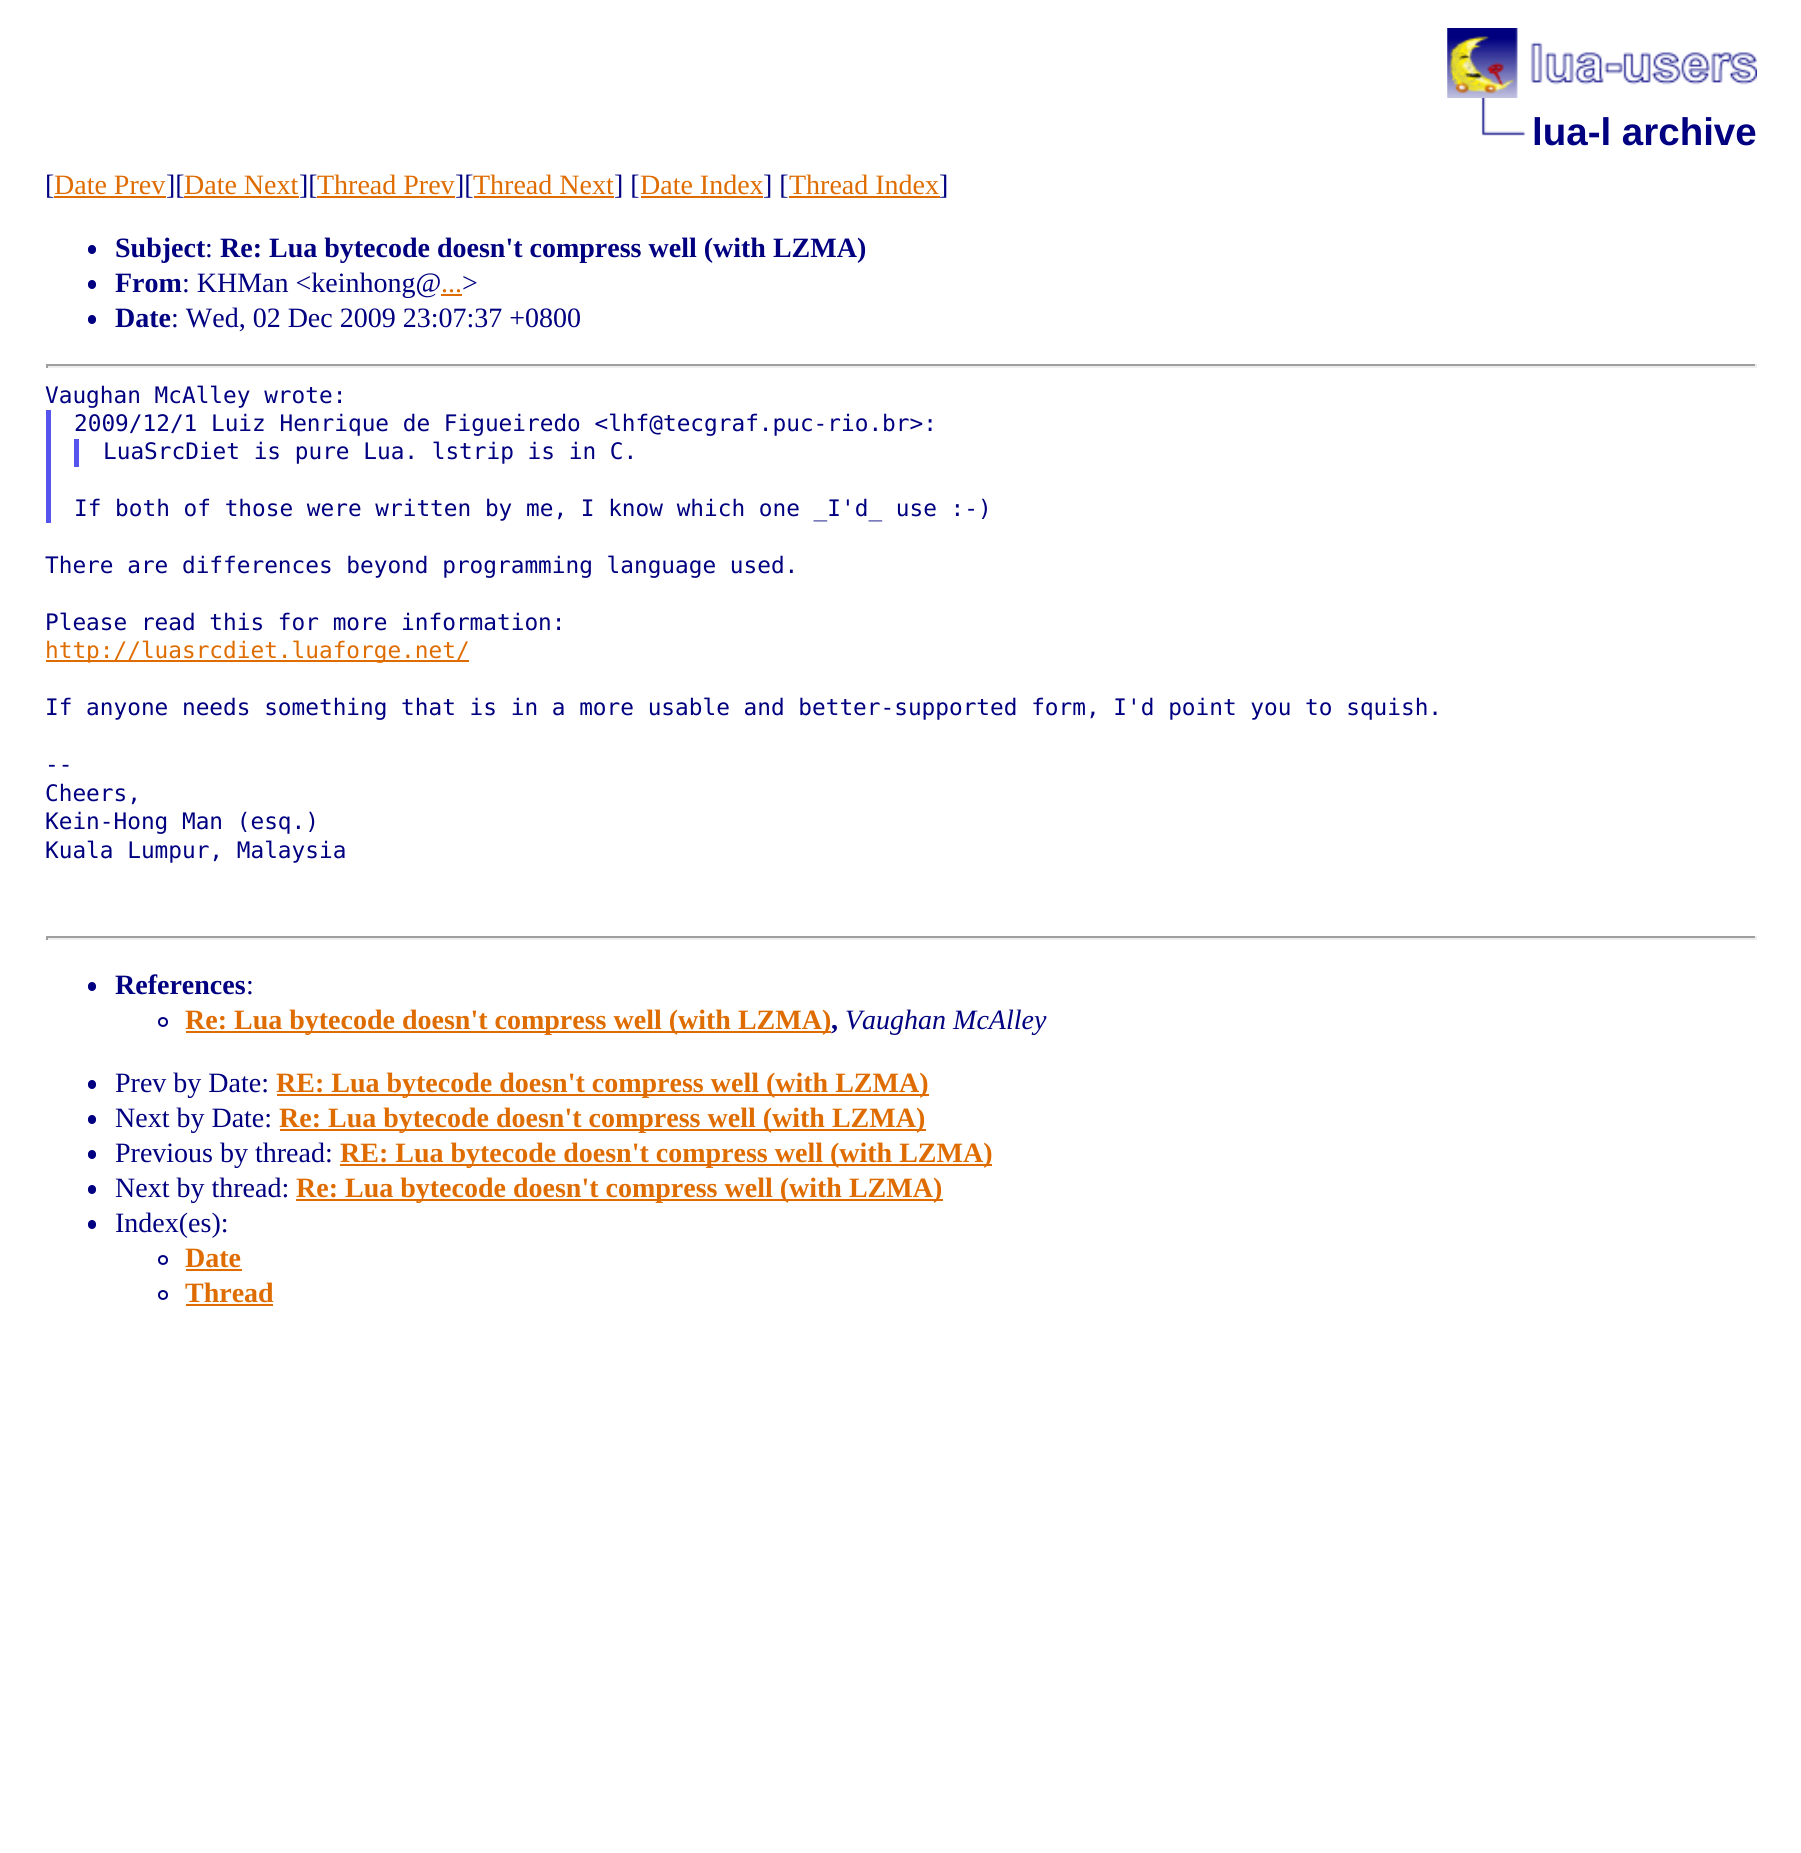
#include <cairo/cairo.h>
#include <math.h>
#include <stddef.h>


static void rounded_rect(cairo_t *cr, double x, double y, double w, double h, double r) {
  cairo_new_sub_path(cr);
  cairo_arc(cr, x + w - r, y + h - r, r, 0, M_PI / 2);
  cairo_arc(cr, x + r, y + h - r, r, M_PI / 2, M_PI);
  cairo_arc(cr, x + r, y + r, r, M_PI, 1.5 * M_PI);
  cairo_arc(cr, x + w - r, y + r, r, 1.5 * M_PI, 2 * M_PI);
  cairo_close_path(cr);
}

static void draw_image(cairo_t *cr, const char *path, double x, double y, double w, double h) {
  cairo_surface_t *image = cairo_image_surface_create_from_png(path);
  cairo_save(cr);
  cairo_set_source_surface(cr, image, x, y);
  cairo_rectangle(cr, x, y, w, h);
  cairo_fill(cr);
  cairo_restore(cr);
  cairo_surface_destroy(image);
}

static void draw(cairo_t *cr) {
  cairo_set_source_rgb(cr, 1, 1, 1);
  cairo_paint(cr);
  draw_image(cr, "images/1.png", 1447, 28, 310, 70);
  draw_image(cr, "images/2.png", 1481, 98, 45, 38);
  cairo_set_source_rgb(cr, 223 / 255.0, 108 / 255.0, 0);
  cairo_rectangle(cr, 54, 196, 112, 2);
  cairo_fill(cr);
  cairo_rectangle(cr, 184, 196, 115, 2);
  cairo_fill(cr);
  cairo_rectangle(cr, 317, 196, 138, 2);
  cairo_fill(cr);
  cairo_rectangle(cr, 474, 196, 140, 2);
  cairo_fill(cr);
  cairo_rectangle(cr, 641, 196, 122, 2);
  cairo_fill(cr);
  cairo_rectangle(cr, 789, 196, 151, 2);
  cairo_fill(cr);
  cairo_set_source_rgb(cr, 0, 0, 128 / 255.0);
  rounded_rect(cr, 88, 245, 8, 9, 4);
  cairo_fill(cr);
  rounded_rect(cr, 88, 280, 8, 9, 4);
  cairo_fill(cr);
  cairo_set_source_rgb(cr, 223 / 255.0, 108 / 255.0, 0);
  cairo_rectangle(cr, 441, 294, 21, 2);
  cairo_fill(cr);
  cairo_set_source_rgb(cr, 0, 0, 128 / 255.0);
  rounded_rect(cr, 88, 315, 8, 9, 4);
  cairo_fill(cr);
  cairo_set_source_rgb(cr, 159 / 255.0, 159 / 255.0, 159 / 255.0);
  cairo_rectangle(cr, 46, 364, 1711, 2);
  cairo_fill(cr);
  cairo_set_source_rgb(cr, 238 / 255.0, 238 / 255.0, 238 / 255.0);
  cairo_rectangle(cr, 1755, 364, 2, 4);
  cairo_fill(cr);
  cairo_rectangle(cr, 46, 366, 1711, 2);
  cairo_fill(cr);
  cairo_set_source_rgb(cr, 159 / 255.0, 159 / 255.0, 159 / 255.0);
  cairo_rectangle(cr, 46, 364, 2, 4);
  cairo_fill(cr);
  cairo_set_source_rgb(cr, 85 / 255.0, 85 / 255.0, 238 / 255.0);
  cairo_rectangle(cr, 46, 410, 5, 113);
  cairo_fill(cr);
  cairo_rectangle(cr, 74, 439, 5, 28);
  cairo_fill(cr);
  cairo_set_source_rgb(cr, 223 / 255.0, 108 / 255.0, 0);
  cairo_rectangle(cr, 46, 660, 423, 2);
  cairo_fill(cr);
  cairo_set_source_rgb(cr, 159 / 255.0, 159 / 255.0, 159 / 255.0);
  cairo_rectangle(cr, 46, 936, 1711, 2);
  cairo_fill(cr);
  cairo_set_source_rgb(cr, 238 / 255.0, 238 / 255.0, 238 / 255.0);
  cairo_rectangle(cr, 1755, 936, 2, 4);
  cairo_fill(cr);
  cairo_rectangle(cr, 46, 938, 1711, 2);
  cairo_fill(cr);
  cairo_set_source_rgb(cr, 159 / 255.0, 159 / 255.0, 159 / 255.0);
  cairo_rectangle(cr, 46, 936, 2, 4);
  cairo_fill(cr);
  cairo_set_source_rgb(cr, 0, 0, 128 / 255.0);
  rounded_rect(cr, 88, 982, 8, 9, 4);
  cairo_fill(cr);
  cairo_arc(cr, 163, 1022, 4, 0, 2 * M_PI);
  cairo_stroke(cr);
  cairo_set_source_rgb(cr, 223 / 255.0, 108 / 255.0, 0);
  cairo_rectangle(cr, 186, 1031, 645, 2);
  cairo_fill(cr);
  cairo_set_source_rgb(cr, 0, 0, 128 / 255.0);
  rounded_rect(cr, 88, 1080, 8, 9, 4);
  cairo_fill(cr);
  cairo_set_source_rgb(cr, 223 / 255.0, 108 / 255.0, 0);
  cairo_rectangle(cr, 277, 1094, 652, 2);
  cairo_fill(cr);
  cairo_set_source_rgb(cr, 0, 0, 128 / 255.0);
  rounded_rect(cr, 88, 1115, 8, 9, 4);
  cairo_fill(cr);
  cairo_set_source_rgb(cr, 223 / 255.0, 108 / 255.0, 0);
  cairo_rectangle(cr, 280, 1129, 646, 2);
  cairo_fill(cr);
  cairo_set_source_rgb(cr, 0, 0, 128 / 255.0);
  rounded_rect(cr, 88, 1150, 8, 9, 4);
  cairo_fill(cr);
  cairo_set_source_rgb(cr, 223 / 255.0, 108 / 255.0, 0);
  cairo_rectangle(cr, 340, 1164, 652, 2);
  cairo_fill(cr);
  cairo_set_source_rgb(cr, 0, 0, 128 / 255.0);
  rounded_rect(cr, 88, 1185, 8, 9, 4);
  cairo_fill(cr);
  cairo_set_source_rgb(cr, 223 / 255.0, 108 / 255.0, 0);
  cairo_rectangle(cr, 296, 1199, 647, 2);
  cairo_fill(cr);
  cairo_set_source_rgb(cr, 0, 0, 128 / 255.0);
  rounded_rect(cr, 88, 1220, 8, 9, 4);
  cairo_fill(cr);
  cairo_arc(cr, 163, 1260, 4, 0, 2 * M_PI);
  cairo_stroke(cr);
  cairo_set_source_rgb(cr, 223 / 255.0, 108 / 255.0, 0);
  cairo_rectangle(cr, 186, 1269, 56, 2);
  cairo_fill(cr);
  cairo_arc(cr, 163, 1295, 4, 0, 2 * M_PI);
  cairo_set_source_rgb(cr, 0, 0, 128 / 255.0);
  cairo_stroke(cr);
  cairo_set_source_rgb(cr, 223 / 255.0, 108 / 255.0, 0);
  cairo_rectangle(cr, 186, 1304, 87, 2);
  cairo_fill(cr);
  cairo_select_font_face(cr, "Liberation Sans", CAIRO_FONT_SLANT_NORMAL, CAIRO_FONT_WEIGHT_BOLD);
  cairo_set_font_size(cr, 38.5);
  cairo_set_source_rgb(cr, 0, 0, 128 / 255.0);
  cairo_move_to(cr, 1532, 145);
  cairo_show_text(cr, "lua-l archive");
  cairo_select_font_face(cr, "Liberation Serif", CAIRO_FONT_SLANT_NORMAL, CAIRO_FONT_WEIGHT_NORMAL);
  cairo_set_font_size(cr, 28);
  cairo_move_to(cr, 45, 194);
  cairo_show_text(cr, "[");
  cairo_set_source_rgb(cr, 223 / 255.0, 108 / 255.0, 0);
  cairo_move_to(cr, 54, 194);
  cairo_show_text(cr, "Date Prev");
  cairo_set_source_rgb(cr, 0, 0, 128 / 255.0);
  cairo_move_to(cr, 166, 194);
  cairo_show_text(cr, "][");
  cairo_set_source_rgb(cr, 223 / 255.0, 108 / 255.0, 0);
  cairo_move_to(cr, 184, 194);
  cairo_show_text(cr, "Date Next");
  cairo_set_source_rgb(cr, 0, 0, 128 / 255.0);
  cairo_move_to(cr, 299, 194);
  cairo_show_text(cr, "][");
  cairo_set_source_rgb(cr, 223 / 255.0, 108 / 255.0, 0);
  cairo_move_to(cr, 317, 194);
  cairo_show_text(cr, "Thread Prev");
  cairo_set_source_rgb(cr, 0, 0, 128 / 255.0);
  cairo_move_to(cr, 455, 194);
  cairo_show_text(cr, "][");
  cairo_set_source_rgb(cr, 223 / 255.0, 108 / 255.0, 0);
  cairo_move_to(cr, 473, 194);
  cairo_show_text(cr, "Thread Next");
  cairo_set_source_rgb(cr, 0, 0, 128 / 255.0);
  cairo_move_to(cr, 614, 194);
  cairo_show_text(cr, "] [");
  cairo_set_source_rgb(cr, 223 / 255.0, 108 / 255.0, 0);
  cairo_move_to(cr, 640, 194);
  cairo_show_text(cr, "Date Index");
  cairo_set_source_rgb(cr, 0, 0, 128 / 255.0);
  cairo_move_to(cr, 763, 194);
  cairo_show_text(cr, "] [");
  cairo_set_source_rgb(cr, 223 / 255.0, 108 / 255.0, 0);
  cairo_move_to(cr, 789, 194);
  cairo_show_text(cr, "Thread Index");
  cairo_set_source_rgb(cr, 0, 0, 128 / 255.0);
  cairo_move_to(cr, 939, 194);
  cairo_show_text(cr, "]");
  cairo_select_font_face(cr, "Liberation Serif", CAIRO_FONT_SLANT_NORMAL, CAIRO_FONT_WEIGHT_BOLD);
  cairo_move_to(cr, 115, 257);
  cairo_show_text(cr, "Subject");
  cairo_select_font_face(cr, "Liberation Serif", CAIRO_FONT_SLANT_NORMAL, CAIRO_FONT_WEIGHT_NORMAL);
  cairo_move_to(cr, 205, 257);
  cairo_show_text(cr, ":");
  cairo_select_font_face(cr, "Liberation Serif", CAIRO_FONT_SLANT_NORMAL, CAIRO_FONT_WEIGHT_BOLD);
  cairo_move_to(cr, 220, 257);
  cairo_show_text(cr, "Re: Lua bytecode doesn't compress well (with LZMA)");
  cairo_move_to(cr, 115, 292);
  cairo_show_text(cr, "From");
  cairo_select_font_face(cr, "Liberation Serif", CAIRO_FONT_SLANT_NORMAL, CAIRO_FONT_WEIGHT_NORMAL);
  cairo_move_to(cr, 182, 292);
  cairo_show_text(cr, ": KHMan <keinhong@");
  cairo_move_to(cr, 462, 292);
  cairo_show_text(cr, ">");
  cairo_set_source_rgb(cr, 223 / 255.0, 108 / 255.0, 0);
  cairo_move_to(cr, 441, 292);
  cairo_show_text(cr, "...");
  cairo_select_font_face(cr, "Liberation Serif", CAIRO_FONT_SLANT_NORMAL, CAIRO_FONT_WEIGHT_BOLD);
  cairo_set_source_rgb(cr, 0, 0, 128 / 255.0);
  cairo_move_to(cr, 115, 327);
  cairo_show_text(cr, "Date");
  cairo_select_font_face(cr, "Liberation Serif", CAIRO_FONT_SLANT_NORMAL, CAIRO_FONT_WEIGHT_NORMAL);
  cairo_move_to(cr, 171, 327);
  cairo_show_text(cr, ": Wed, 02 Dec 2009 23:07:37 +0800");
  cairo_select_font_face(cr, "DejaVu Sans Mono", CAIRO_FONT_SLANT_NORMAL, CAIRO_FONT_WEIGHT_NORMAL);
  cairo_set_font_size(cr, 22.75);
  cairo_move_to(cr, 45, 403);
  cairo_show_text(cr, "Vaughan McAlley wrote:");
  cairo_move_to(cr, 74, 431);
  cairo_show_text(cr, "2009/12/1 Luiz Henrique de Figueiredo <lhf@tecgraf.puc-rio.br>:");
  cairo_move_to(cr, 103, 459);
  cairo_show_text(cr, "LuaSrcDiet is pure Lua. lstrip is in C.");
  cairo_move_to(cr, 74, 516);
  cairo_show_text(cr, "If both of those were written by me, I know which one _I'd_ use :-)");
  cairo_move_to(cr, 45, 573);
  cairo_show_text(cr, "There are differences beyond programming language used.");
  cairo_move_to(cr, 45, 630);
  cairo_show_text(cr, "Please read this for more information:");
  cairo_set_source_rgb(cr, 223 / 255.0, 108 / 255.0, 0);
  cairo_move_to(cr, 45, 658);
  cairo_show_text(cr, "http://luasrcdiet.luaforge.net/");
  cairo_set_source_rgb(cr, 0, 0, 128 / 255.0);
  cairo_move_to(cr, 45, 715);
  cairo_show_text(cr, "If anyone needs something that is in a more usable and better-supported form, I'd point you to squish.");
  cairo_move_to(cr, 45, 772);
  cairo_show_text(cr, "--");
  cairo_move_to(cr, 45, 801);
  cairo_show_text(cr, "Cheers,");
  cairo_move_to(cr, 45, 829);
  cairo_show_text(cr, "Kein-Hong Man (esq.)");
  cairo_move_to(cr, 45, 858);
  cairo_show_text(cr, "Kuala Lumpur, Malaysia");
  cairo_select_font_face(cr, "Liberation Serif", CAIRO_FONT_SLANT_NORMAL, CAIRO_FONT_WEIGHT_BOLD);
  cairo_set_font_size(cr, 28);
  cairo_move_to(cr, 115, 994);
  cairo_show_text(cr, "References");
  cairo_select_font_face(cr, "Liberation Serif", CAIRO_FONT_SLANT_NORMAL, CAIRO_FONT_WEIGHT_NORMAL);
  cairo_move_to(cr, 246, 994);
  cairo_show_text(cr, ":");
  cairo_select_font_face(cr, "Liberation Serif", CAIRO_FONT_SLANT_NORMAL, CAIRO_FONT_WEIGHT_BOLD);
  cairo_set_source_rgb(cr, 223 / 255.0, 108 / 255.0, 0);
  cairo_move_to(cr, 185, 1029);
  cairo_show_text(cr, "Re: Lua bytecode doesn't compress well (with LZMA)");
  cairo_select_font_face(cr, "Liberation Serif", CAIRO_FONT_SLANT_ITALIC, CAIRO_FONT_WEIGHT_NORMAL);
  cairo_set_source_rgb(cr, 0, 0, 128 / 255.0);
  cairo_move_to(cr, 845, 1029);
  cairo_show_text(cr, "Vaughan McAlley");
  cairo_select_font_face(cr, "Liberation Serif", CAIRO_FONT_SLANT_NORMAL, CAIRO_FONT_WEIGHT_BOLD);
  cairo_move_to(cr, 831, 1029);
  cairo_show_text(cr, ",");
  cairo_select_font_face(cr, "Liberation Serif", CAIRO_FONT_SLANT_NORMAL, CAIRO_FONT_WEIGHT_NORMAL);
  cairo_move_to(cr, 115, 1092);
  cairo_show_text(cr, "Prev by Date:");
  cairo_select_font_face(cr, "Liberation Serif", CAIRO_FONT_SLANT_NORMAL, CAIRO_FONT_WEIGHT_BOLD);
  cairo_set_source_rgb(cr, 223 / 255.0, 108 / 255.0, 0);
  cairo_move_to(cr, 276, 1092);
  cairo_show_text(cr, "RE: Lua bytecode doesn't compress well (with LZMA)");
  cairo_select_font_face(cr, "Liberation Serif", CAIRO_FONT_SLANT_NORMAL, CAIRO_FONT_WEIGHT_NORMAL);
  cairo_set_source_rgb(cr, 0, 0, 128 / 255.0);
  cairo_move_to(cr, 115, 1127);
  cairo_show_text(cr, "Next by Date:");
  cairo_select_font_face(cr, "Liberation Serif", CAIRO_FONT_SLANT_NORMAL, CAIRO_FONT_WEIGHT_BOLD);
  cairo_set_source_rgb(cr, 223 / 255.0, 108 / 255.0, 0);
  cairo_move_to(cr, 279, 1127);
  cairo_show_text(cr, "Re: Lua bytecode doesn't compress well (with LZMA)");
  cairo_select_font_face(cr, "Liberation Serif", CAIRO_FONT_SLANT_NORMAL, CAIRO_FONT_WEIGHT_NORMAL);
  cairo_set_source_rgb(cr, 0, 0, 128 / 255.0);
  cairo_move_to(cr, 115, 1162);
  cairo_show_text(cr, "Previous by thread:");
  cairo_select_font_face(cr, "Liberation Serif", CAIRO_FONT_SLANT_NORMAL, CAIRO_FONT_WEIGHT_BOLD);
  cairo_set_source_rgb(cr, 223 / 255.0, 108 / 255.0, 0);
  cairo_move_to(cr, 340, 1162);
  cairo_show_text(cr, "RE: Lua bytecode doesn't compress well (with LZMA)");
  cairo_select_font_face(cr, "Liberation Serif", CAIRO_FONT_SLANT_NORMAL, CAIRO_FONT_WEIGHT_NORMAL);
  cairo_set_source_rgb(cr, 0, 0, 128 / 255.0);
  cairo_move_to(cr, 115, 1197);
  cairo_show_text(cr, "Next by thread:");
  cairo_select_font_face(cr, "Liberation Serif", CAIRO_FONT_SLANT_NORMAL, CAIRO_FONT_WEIGHT_BOLD);
  cairo_set_source_rgb(cr, 223 / 255.0, 108 / 255.0, 0);
  cairo_move_to(cr, 296, 1197);
  cairo_show_text(cr, "Re: Lua bytecode doesn't compress well (with LZMA)");
  cairo_select_font_face(cr, "Liberation Serif", CAIRO_FONT_SLANT_NORMAL, CAIRO_FONT_WEIGHT_NORMAL);
  cairo_set_source_rgb(cr, 0, 0, 128 / 255.0);
  cairo_move_to(cr, 115, 1232);
  cairo_show_text(cr, "Index(es):");
  cairo_select_font_face(cr, "Liberation Serif", CAIRO_FONT_SLANT_NORMAL, CAIRO_FONT_WEIGHT_BOLD);
  cairo_set_source_rgb(cr, 223 / 255.0, 108 / 255.0, 0);
  cairo_move_to(cr, 185, 1267);
  cairo_show_text(cr, "Date");
  cairo_move_to(cr, 185, 1302);
  cairo_show_text(cr, "Thread");
}

int main(void) {
  cairo_surface_t *surface = cairo_image_surface_create(CAIRO_FORMAT_RGB24, 1801, 1853);
  cairo_t *cr = cairo_create(surface);
  cairo_font_options_t *options = cairo_font_options_create();
  cairo_font_options_set_hint_metrics(options, CAIRO_HINT_METRICS_OFF);
  cairo_font_options_set_hint_style(options, CAIRO_HINT_STYLE_NONE);
  cairo_set_font_options(cr, options);
  cairo_set_miter_limit(cr, 4);
  draw(cr);
  cairo_surface_write_to_png(surface, "out.png");
  cairo_font_options_destroy(options);
  cairo_destroy(cr);
  cairo_surface_destroy(surface);
  return 0;
}
